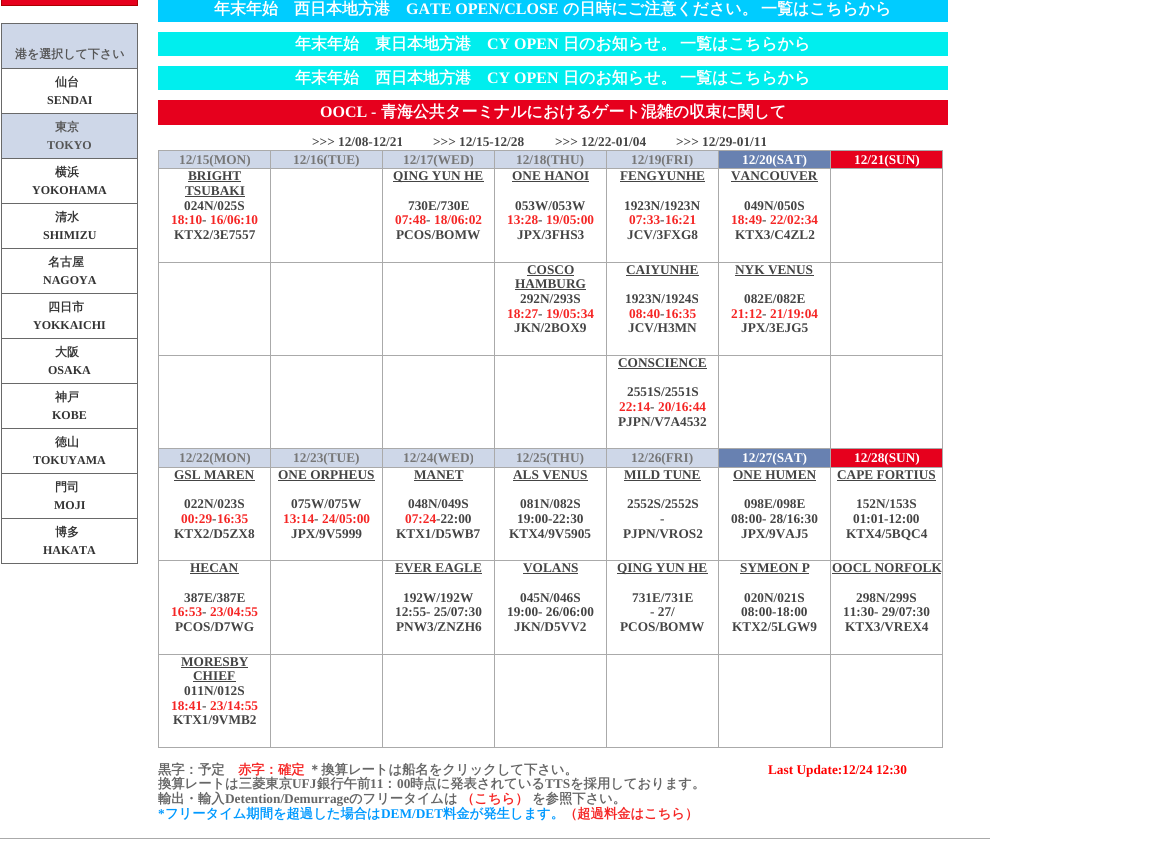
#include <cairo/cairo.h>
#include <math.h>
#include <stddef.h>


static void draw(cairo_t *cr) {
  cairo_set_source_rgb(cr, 1, 1, 1);
  cairo_paint(cr);
  cairo_set_source_rgb(cr, 105 / 255.0, 105 / 255.0, 105 / 255.0);
  cairo_rectangle(cr, 1, 563, 137, 1);
  cairo_fill(cr);
  cairo_set_source_rgb(cr, 230 / 255.0, 0, 29 / 255.0);
  cairo_rectangle(cr, 1.5, -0.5, 136, 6);
  cairo_fill_preserve(cr);
  cairo_set_source_rgb(cr, 170 / 255.0, 0, 0);
  cairo_set_line_width(cr, 1);
  cairo_stroke(cr);
  cairo_set_source_rgb(cr, 206 / 255.0, 215 / 255.0, 232 / 255.0);
  cairo_rectangle(cr, 2, 24, 135, 44);
  cairo_fill(cr);
  cairo_set_source_rgb(cr, 105 / 255.0, 105 / 255.0, 105 / 255.0);
  cairo_rectangle(cr, 1, 23, 137, 1);
  cairo_fill(cr);
  cairo_rectangle(cr, 137, 23, 1, 45);
  cairo_fill(cr);
  cairo_rectangle(cr, 1, 23, 1, 45);
  cairo_fill(cr);
  cairo_rectangle(cr, 1, 68, 137, 1);
  cairo_fill(cr);
  cairo_rectangle(cr, 137, 68, 1, 45);
  cairo_fill(cr);
  cairo_rectangle(cr, 1, 68, 1, 45);
  cairo_fill(cr);
  cairo_set_source_rgb(cr, 206 / 255.0, 215 / 255.0, 232 / 255.0);
  cairo_rectangle(cr, 2, 114, 135, 44);
  cairo_fill(cr);
  cairo_set_source_rgb(cr, 105 / 255.0, 105 / 255.0, 105 / 255.0);
  cairo_rectangle(cr, 1, 113, 137, 1);
  cairo_fill(cr);
  cairo_rectangle(cr, 137, 113, 1, 45);
  cairo_fill(cr);
  cairo_rectangle(cr, 1, 113, 1, 45);
  cairo_fill(cr);
  cairo_rectangle(cr, 1, 158, 137, 1);
  cairo_fill(cr);
  cairo_rectangle(cr, 137, 158, 1, 45);
  cairo_fill(cr);
  cairo_rectangle(cr, 1, 158, 1, 45);
  cairo_fill(cr);
  cairo_rectangle(cr, 1, 203, 137, 1);
  cairo_fill(cr);
  cairo_rectangle(cr, 137, 203, 1, 45);
  cairo_fill(cr);
  cairo_rectangle(cr, 1, 203, 1, 45);
  cairo_fill(cr);
  cairo_rectangle(cr, 1, 248, 137, 1);
  cairo_fill(cr);
  cairo_rectangle(cr, 137, 248, 1, 45);
  cairo_fill(cr);
  cairo_rectangle(cr, 1, 248, 1, 45);
  cairo_fill(cr);
  cairo_rectangle(cr, 1, 293, 137, 1);
  cairo_fill(cr);
  cairo_rectangle(cr, 137, 293, 1, 45);
  cairo_fill(cr);
  cairo_rectangle(cr, 1, 293, 1, 45);
  cairo_fill(cr);
  cairo_rectangle(cr, 1, 338, 137, 1);
  cairo_fill(cr);
  cairo_rectangle(cr, 137, 338, 1, 45);
  cairo_fill(cr);
  cairo_rectangle(cr, 1, 338, 1, 45);
  cairo_fill(cr);
  cairo_rectangle(cr, 1, 383, 137, 1);
  cairo_fill(cr);
  cairo_rectangle(cr, 137, 383, 1, 45);
  cairo_fill(cr);
  cairo_rectangle(cr, 1, 383, 1, 45);
  cairo_fill(cr);
  cairo_rectangle(cr, 1, 428, 137, 1);
  cairo_fill(cr);
  cairo_rectangle(cr, 137, 428, 1, 45);
  cairo_fill(cr);
  cairo_rectangle(cr, 1, 428, 1, 45);
  cairo_fill(cr);
  cairo_rectangle(cr, 1, 473, 137, 1);
  cairo_fill(cr);
  cairo_rectangle(cr, 137, 473, 1, 45);
  cairo_fill(cr);
  cairo_rectangle(cr, 1, 473, 1, 45);
  cairo_fill(cr);
  cairo_rectangle(cr, 1, 518, 137, 1);
  cairo_fill(cr);
  cairo_rectangle(cr, 137, 518, 1, 45);
  cairo_fill(cr);
  cairo_rectangle(cr, 1, 518, 1, 45);
  cairo_fill(cr);
  cairo_set_source_rgb(cr, 0, 204 / 255.0, 1);
  cairo_rectangle(cr, 158, 0, 790, 22);
  cairo_fill(cr);
  cairo_set_source_rgb(cr, 0, 238 / 255.0, 238 / 255.0);
  cairo_rectangle(cr, 158, 32, 790, 24);
  cairo_fill(cr);
  cairo_rectangle(cr, 158, 66, 790, 24);
  cairo_fill(cr);
  cairo_set_source_rgb(cr, 230 / 255.0, 0, 29 / 255.0);
  cairo_rectangle(cr, 158, 100, 790, 25);
  cairo_fill(cr);
  cairo_set_source_rgb(cr, 170 / 255.0, 170 / 255.0, 170 / 255.0);
  cairo_rectangle(cr, 158, 747, 785, 1);
  cairo_fill(cr);
  cairo_set_source_rgb(cr, 206 / 255.0, 215 / 255.0, 232 / 255.0);
  cairo_rectangle(cr, 159, 151, 559, 17);
  cairo_fill(cr);
  cairo_set_source_rgb(cr, 170 / 255.0, 170 / 255.0, 170 / 255.0);
  cairo_rectangle(cr, 942, 150, 1, 504);
  cairo_fill(cr);
  cairo_rectangle(cr, 158, 150, 784, 1);
  cairo_fill(cr);
  cairo_rectangle(cr, 158, 150, 1, 18);
  cairo_fill(cr);
  cairo_rectangle(cr, 270, 150, 1, 18);
  cairo_fill(cr);
  cairo_rectangle(cr, 382, 150, 1, 18);
  cairo_fill(cr);
  cairo_rectangle(cr, 494, 150, 1, 18);
  cairo_fill(cr);
  cairo_rectangle(cr, 606, 150, 1, 18);
  cairo_fill(cr);
  cairo_set_source_rgb(cr, 104 / 255.0, 129 / 255.0, 177 / 255.0);
  cairo_rectangle(cr, 719, 151, 111, 17);
  cairo_fill(cr);
  cairo_set_source_rgb(cr, 170 / 255.0, 170 / 255.0, 170 / 255.0);
  cairo_rectangle(cr, 718, 150, 1, 18);
  cairo_fill(cr);
  cairo_set_source_rgb(cr, 230 / 255.0, 0, 29 / 255.0);
  cairo_rectangle(cr, 831, 151, 111, 17);
  cairo_fill(cr);
  cairo_set_source_rgb(cr, 170 / 255.0, 170 / 255.0, 170 / 255.0);
  cairo_rectangle(cr, 830, 150, 1, 18);
  cairo_fill(cr);
  cairo_rectangle(cr, 158, 168, 784, 1);
  cairo_fill(cr);
  cairo_rectangle(cr, 158, 168, 1, 94);
  cairo_fill(cr);
  cairo_set_source_rgb(cr, 68 / 255.0, 68 / 255.0, 68 / 255.0);
  cairo_rectangle(cr, 188, 181, 53, 1);
  cairo_fill(cr);
  cairo_rectangle(cr, 185, 196, 60, 1);
  cairo_fill(cr);
  cairo_set_source_rgb(cr, 170 / 255.0, 170 / 255.0, 170 / 255.0);
  cairo_rectangle(cr, 270, 168, 1, 94);
  cairo_fill(cr);
  cairo_rectangle(cr, 382, 168, 1, 94);
  cairo_fill(cr);
  cairo_set_source_rgb(cr, 68 / 255.0, 68 / 255.0, 68 / 255.0);
  cairo_rectangle(cr, 393, 181, 91, 1);
  cairo_fill(cr);
  cairo_set_source_rgb(cr, 170 / 255.0, 170 / 255.0, 170 / 255.0);
  cairo_rectangle(cr, 494, 168, 1, 94);
  cairo_fill(cr);
  cairo_set_source_rgb(cr, 68 / 255.0, 68 / 255.0, 68 / 255.0);
  cairo_rectangle(cr, 512, 181, 77, 1);
  cairo_fill(cr);
  cairo_set_source_rgb(cr, 170 / 255.0, 170 / 255.0, 170 / 255.0);
  cairo_rectangle(cr, 606, 168, 1, 94);
  cairo_fill(cr);
  cairo_set_source_rgb(cr, 68 / 255.0, 68 / 255.0, 68 / 255.0);
  cairo_rectangle(cr, 620, 181, 85, 1);
  cairo_fill(cr);
  cairo_set_source_rgb(cr, 170 / 255.0, 170 / 255.0, 170 / 255.0);
  cairo_rectangle(cr, 718, 168, 1, 94);
  cairo_fill(cr);
  cairo_set_source_rgb(cr, 68 / 255.0, 68 / 255.0, 68 / 255.0);
  cairo_rectangle(cr, 731, 181, 87, 1);
  cairo_fill(cr);
  cairo_set_source_rgb(cr, 170 / 255.0, 170 / 255.0, 170 / 255.0);
  cairo_rectangle(cr, 830, 168, 1, 94);
  cairo_fill(cr);
  cairo_rectangle(cr, 158, 262, 784, 1);
  cairo_fill(cr);
  cairo_rectangle(cr, 158, 262, 1, 93);
  cairo_fill(cr);
  cairo_rectangle(cr, 270, 262, 1, 93);
  cairo_fill(cr);
  cairo_rectangle(cr, 382, 262, 1, 93);
  cairo_fill(cr);
  cairo_rectangle(cr, 494, 262, 1, 93);
  cairo_fill(cr);
  cairo_set_source_rgb(cr, 68 / 255.0, 68 / 255.0, 68 / 255.0);
  cairo_rectangle(cr, 527, 275, 47, 1);
  cairo_fill(cr);
  cairo_rectangle(cr, 515, 289, 71, 1);
  cairo_fill(cr);
  cairo_set_source_rgb(cr, 170 / 255.0, 170 / 255.0, 170 / 255.0);
  cairo_rectangle(cr, 606, 262, 1, 93);
  cairo_fill(cr);
  cairo_set_source_rgb(cr, 68 / 255.0, 68 / 255.0, 68 / 255.0);
  cairo_rectangle(cr, 626, 275, 73, 1);
  cairo_fill(cr);
  cairo_set_source_rgb(cr, 170 / 255.0, 170 / 255.0, 170 / 255.0);
  cairo_rectangle(cr, 718, 262, 1, 93);
  cairo_fill(cr);
  cairo_set_source_rgb(cr, 68 / 255.0, 68 / 255.0, 68 / 255.0);
  cairo_rectangle(cr, 735, 275, 79, 1);
  cairo_fill(cr);
  cairo_set_source_rgb(cr, 170 / 255.0, 170 / 255.0, 170 / 255.0);
  cairo_rectangle(cr, 830, 262, 1, 93);
  cairo_fill(cr);
  cairo_rectangle(cr, 158, 355, 784, 1);
  cairo_fill(cr);
  cairo_rectangle(cr, 158, 355, 1, 93);
  cairo_fill(cr);
  cairo_rectangle(cr, 270, 355, 1, 93);
  cairo_fill(cr);
  cairo_rectangle(cr, 382, 355, 1, 93);
  cairo_fill(cr);
  cairo_rectangle(cr, 494, 355, 1, 93);
  cairo_fill(cr);
  cairo_rectangle(cr, 606, 355, 1, 93);
  cairo_fill(cr);
  cairo_set_source_rgb(cr, 68 / 255.0, 68 / 255.0, 68 / 255.0);
  cairo_rectangle(cr, 618, 368, 89, 1);
  cairo_fill(cr);
  cairo_set_source_rgb(cr, 170 / 255.0, 170 / 255.0, 170 / 255.0);
  cairo_rectangle(cr, 718, 355, 1, 93);
  cairo_fill(cr);
  cairo_rectangle(cr, 830, 355, 1, 93);
  cairo_fill(cr);
  cairo_set_source_rgb(cr, 206 / 255.0, 215 / 255.0, 232 / 255.0);
  cairo_rectangle(cr, 159, 449, 559, 18);
  cairo_fill(cr);
  cairo_set_source_rgb(cr, 170 / 255.0, 170 / 255.0, 170 / 255.0);
  cairo_rectangle(cr, 158, 448, 784, 1);
  cairo_fill(cr);
  cairo_rectangle(cr, 158, 448, 1, 19);
  cairo_fill(cr);
  cairo_rectangle(cr, 270, 448, 1, 19);
  cairo_fill(cr);
  cairo_rectangle(cr, 382, 448, 1, 19);
  cairo_fill(cr);
  cairo_rectangle(cr, 494, 448, 1, 19);
  cairo_fill(cr);
  cairo_rectangle(cr, 606, 448, 1, 19);
  cairo_fill(cr);
  cairo_set_source_rgb(cr, 104 / 255.0, 129 / 255.0, 177 / 255.0);
  cairo_rectangle(cr, 719, 449, 111, 18);
  cairo_fill(cr);
  cairo_set_source_rgb(cr, 170 / 255.0, 170 / 255.0, 170 / 255.0);
  cairo_rectangle(cr, 718, 448, 1, 19);
  cairo_fill(cr);
  cairo_set_source_rgb(cr, 230 / 255.0, 0, 29 / 255.0);
  cairo_rectangle(cr, 831, 449, 111, 18);
  cairo_fill(cr);
  cairo_set_source_rgb(cr, 170 / 255.0, 170 / 255.0, 170 / 255.0);
  cairo_rectangle(cr, 830, 448, 1, 19);
  cairo_fill(cr);
  cairo_rectangle(cr, 158, 467, 784, 1);
  cairo_fill(cr);
  cairo_rectangle(cr, 158, 467, 1, 93);
  cairo_fill(cr);
  cairo_set_source_rgb(cr, 68 / 255.0, 68 / 255.0, 68 / 255.0);
  cairo_rectangle(cr, 174, 480, 81, 1);
  cairo_fill(cr);
  cairo_set_source_rgb(cr, 170 / 255.0, 170 / 255.0, 170 / 255.0);
  cairo_rectangle(cr, 270, 467, 1, 93);
  cairo_fill(cr);
  cairo_set_source_rgb(cr, 68 / 255.0, 68 / 255.0, 68 / 255.0);
  cairo_rectangle(cr, 278, 480, 97, 1);
  cairo_fill(cr);
  cairo_set_source_rgb(cr, 170 / 255.0, 170 / 255.0, 170 / 255.0);
  cairo_rectangle(cr, 382, 467, 1, 93);
  cairo_fill(cr);
  cairo_set_source_rgb(cr, 68 / 255.0, 68 / 255.0, 68 / 255.0);
  cairo_rectangle(cr, 414, 480, 49, 1);
  cairo_fill(cr);
  cairo_set_source_rgb(cr, 170 / 255.0, 170 / 255.0, 170 / 255.0);
  cairo_rectangle(cr, 494, 467, 1, 93);
  cairo_fill(cr);
  cairo_set_source_rgb(cr, 68 / 255.0, 68 / 255.0, 68 / 255.0);
  cairo_rectangle(cr, 513, 480, 75, 1);
  cairo_fill(cr);
  cairo_set_source_rgb(cr, 170 / 255.0, 170 / 255.0, 170 / 255.0);
  cairo_rectangle(cr, 606, 467, 1, 93);
  cairo_fill(cr);
  cairo_set_source_rgb(cr, 68 / 255.0, 68 / 255.0, 68 / 255.0);
  cairo_rectangle(cr, 624, 480, 77, 1);
  cairo_fill(cr);
  cairo_set_source_rgb(cr, 170 / 255.0, 170 / 255.0, 170 / 255.0);
  cairo_rectangle(cr, 718, 467, 1, 93);
  cairo_fill(cr);
  cairo_set_source_rgb(cr, 68 / 255.0, 68 / 255.0, 68 / 255.0);
  cairo_rectangle(cr, 733, 480, 83, 1);
  cairo_fill(cr);
  cairo_set_source_rgb(cr, 170 / 255.0, 170 / 255.0, 170 / 255.0);
  cairo_rectangle(cr, 830, 467, 1, 93);
  cairo_fill(cr);
  cairo_set_source_rgb(cr, 68 / 255.0, 68 / 255.0, 68 / 255.0);
  cairo_rectangle(cr, 837, 480, 99, 1);
  cairo_fill(cr);
  cairo_set_source_rgb(cr, 170 / 255.0, 170 / 255.0, 170 / 255.0);
  cairo_rectangle(cr, 158, 560, 784, 1);
  cairo_fill(cr);
  cairo_rectangle(cr, 158, 560, 1, 94);
  cairo_fill(cr);
  cairo_set_source_rgb(cr, 68 / 255.0, 68 / 255.0, 68 / 255.0);
  cairo_rectangle(cr, 190, 573, 49, 1);
  cairo_fill(cr);
  cairo_set_source_rgb(cr, 170 / 255.0, 170 / 255.0, 170 / 255.0);
  cairo_rectangle(cr, 270, 560, 1, 94);
  cairo_fill(cr);
  cairo_rectangle(cr, 382, 560, 1, 94);
  cairo_fill(cr);
  cairo_set_source_rgb(cr, 68 / 255.0, 68 / 255.0, 68 / 255.0);
  cairo_rectangle(cr, 395, 573, 87, 1);
  cairo_fill(cr);
  cairo_set_source_rgb(cr, 170 / 255.0, 170 / 255.0, 170 / 255.0);
  cairo_rectangle(cr, 494, 560, 1, 94);
  cairo_fill(cr);
  cairo_set_source_rgb(cr, 68 / 255.0, 68 / 255.0, 68 / 255.0);
  cairo_rectangle(cr, 523, 573, 55, 1);
  cairo_fill(cr);
  cairo_set_source_rgb(cr, 170 / 255.0, 170 / 255.0, 170 / 255.0);
  cairo_rectangle(cr, 606, 560, 1, 94);
  cairo_fill(cr);
  cairo_set_source_rgb(cr, 68 / 255.0, 68 / 255.0, 68 / 255.0);
  cairo_rectangle(cr, 617, 573, 91, 1);
  cairo_fill(cr);
  cairo_set_source_rgb(cr, 170 / 255.0, 170 / 255.0, 170 / 255.0);
  cairo_rectangle(cr, 718, 560, 1, 94);
  cairo_fill(cr);
  cairo_set_source_rgb(cr, 68 / 255.0, 68 / 255.0, 68 / 255.0);
  cairo_rectangle(cr, 740, 573, 69, 1);
  cairo_fill(cr);
  cairo_set_source_rgb(cr, 170 / 255.0, 170 / 255.0, 170 / 255.0);
  cairo_rectangle(cr, 830, 560, 1, 94);
  cairo_fill(cr);
  cairo_set_source_rgb(cr, 68 / 255.0, 68 / 255.0, 68 / 255.0);
  cairo_rectangle(cr, 832, 573, 109, 1);
  cairo_fill(cr);
  cairo_set_source_rgb(cr, 170 / 255.0, 170 / 255.0, 170 / 255.0);
  cairo_rectangle(cr, 942, 654, 1, 93);
  cairo_fill(cr);
  cairo_rectangle(cr, 158, 654, 784, 1);
  cairo_fill(cr);
  cairo_rectangle(cr, 158, 654, 1, 93);
  cairo_fill(cr);
  cairo_set_source_rgb(cr, 68 / 255.0, 68 / 255.0, 68 / 255.0);
  cairo_rectangle(cr, 181, 667, 67, 1);
  cairo_fill(cr);
  cairo_rectangle(cr, 193, 681, 43, 1);
  cairo_fill(cr);
  cairo_set_source_rgb(cr, 170 / 255.0, 170 / 255.0, 170 / 255.0);
  cairo_rectangle(cr, 270, 654, 1, 93);
  cairo_fill(cr);
  cairo_rectangle(cr, 382, 654, 1, 93);
  cairo_fill(cr);
  cairo_rectangle(cr, 494, 654, 1, 93);
  cairo_fill(cr);
  cairo_rectangle(cr, 606, 654, 1, 93);
  cairo_fill(cr);
  cairo_rectangle(cr, 718, 654, 1, 93);
  cairo_fill(cr);
  cairo_rectangle(cr, 830, 654, 1, 93);
  cairo_fill(cr);
  cairo_rectangle(cr, 0, 838, 990, 1);
  cairo_fill(cr);
  cairo_select_font_face(cr, "WenQuanYi Zen Hei", CAIRO_FONT_SLANT_NORMAL, CAIRO_FONT_WEIGHT_BOLD);
  cairo_set_font_size(cr, 12);
  cairo_set_source_rgb(cr, 85 / 255.0, 85 / 255.0, 85 / 255.0);
  cairo_move_to(cr, 15, 58);
  cairo_show_text(cr, "港を選択して下さい");
  cairo_set_source_rgb(cr, 51 / 255.0, 51 / 255.0, 51 / 255.0);
  cairo_move_to(cr, 55, 86);
  cairo_show_text(cr, "仙台");
  cairo_select_font_face(cr, "Liberation Serif", CAIRO_FONT_SLANT_NORMAL, CAIRO_FONT_WEIGHT_BOLD);
  cairo_move_to(cr, 47, 104);
  cairo_show_text(cr, "SENDAI");
  cairo_select_font_face(cr, "WenQuanYi Zen Hei", CAIRO_FONT_SLANT_NORMAL, CAIRO_FONT_WEIGHT_BOLD);
  cairo_set_source_rgb(cr, 85 / 255.0, 85 / 255.0, 85 / 255.0);
  cairo_move_to(cr, 55, 131);
  cairo_show_text(cr, "東京");
  cairo_select_font_face(cr, "Liberation Serif", CAIRO_FONT_SLANT_NORMAL, CAIRO_FONT_WEIGHT_BOLD);
  cairo_move_to(cr, 47, 149);
  cairo_show_text(cr, "TOKYO");
  cairo_select_font_face(cr, "WenQuanYi Zen Hei", CAIRO_FONT_SLANT_NORMAL, CAIRO_FONT_WEIGHT_BOLD);
  cairo_set_source_rgb(cr, 51 / 255.0, 51 / 255.0, 51 / 255.0);
  cairo_move_to(cr, 55, 176);
  cairo_show_text(cr, "横浜");
  cairo_select_font_face(cr, "Liberation Serif", CAIRO_FONT_SLANT_NORMAL, CAIRO_FONT_WEIGHT_BOLD);
  cairo_move_to(cr, 32, 194);
  cairo_show_text(cr, "YOKOHAMA");
  cairo_select_font_face(cr, "WenQuanYi Zen Hei", CAIRO_FONT_SLANT_NORMAL, CAIRO_FONT_WEIGHT_BOLD);
  cairo_move_to(cr, 55, 221);
  cairo_show_text(cr, "清水");
  cairo_select_font_face(cr, "Liberation Serif", CAIRO_FONT_SLANT_NORMAL, CAIRO_FONT_WEIGHT_BOLD);
  cairo_move_to(cr, 43, 239);
  cairo_show_text(cr, "SHIMIZU");
  cairo_select_font_face(cr, "WenQuanYi Zen Hei", CAIRO_FONT_SLANT_NORMAL, CAIRO_FONT_WEIGHT_BOLD);
  cairo_move_to(cr, 48, 266);
  cairo_show_text(cr, "名古屋");
  cairo_select_font_face(cr, "Liberation Serif", CAIRO_FONT_SLANT_NORMAL, CAIRO_FONT_WEIGHT_BOLD);
  cairo_move_to(cr, 43, 284);
  cairo_show_text(cr, "NAGOYA");
  cairo_select_font_face(cr, "WenQuanYi Zen Hei", CAIRO_FONT_SLANT_NORMAL, CAIRO_FONT_WEIGHT_BOLD);
  cairo_move_to(cr, 48, 311);
  cairo_show_text(cr, "四日市");
  cairo_select_font_face(cr, "Liberation Serif", CAIRO_FONT_SLANT_NORMAL, CAIRO_FONT_WEIGHT_BOLD);
  cairo_move_to(cr, 33, 329);
  cairo_show_text(cr, "YOKKAICHI");
  cairo_select_font_face(cr, "WenQuanYi Zen Hei", CAIRO_FONT_SLANT_NORMAL, CAIRO_FONT_WEIGHT_BOLD);
  cairo_move_to(cr, 55, 356);
  cairo_show_text(cr, "大阪");
  cairo_select_font_face(cr, "Liberation Serif", CAIRO_FONT_SLANT_NORMAL, CAIRO_FONT_WEIGHT_BOLD);
  cairo_move_to(cr, 48, 374);
  cairo_show_text(cr, "OSAKA");
  cairo_select_font_face(cr, "WenQuanYi Zen Hei", CAIRO_FONT_SLANT_NORMAL, CAIRO_FONT_WEIGHT_BOLD);
  cairo_move_to(cr, 55, 401);
  cairo_show_text(cr, "神戸");
  cairo_select_font_face(cr, "Liberation Serif", CAIRO_FONT_SLANT_NORMAL, CAIRO_FONT_WEIGHT_BOLD);
  cairo_move_to(cr, 52, 419);
  cairo_show_text(cr, "KOBE");
  cairo_select_font_face(cr, "WenQuanYi Zen Hei", CAIRO_FONT_SLANT_NORMAL, CAIRO_FONT_WEIGHT_BOLD);
  cairo_move_to(cr, 55, 446);
  cairo_show_text(cr, "徳山");
  cairo_select_font_face(cr, "Liberation Serif", CAIRO_FONT_SLANT_NORMAL, CAIRO_FONT_WEIGHT_BOLD);
  cairo_move_to(cr, 33, 464);
  cairo_show_text(cr, "TOKUYAMA");
  cairo_select_font_face(cr, "WenQuanYi Zen Hei", CAIRO_FONT_SLANT_NORMAL, CAIRO_FONT_WEIGHT_BOLD);
  cairo_move_to(cr, 55, 491);
  cairo_show_text(cr, "門司");
  cairo_select_font_face(cr, "Liberation Serif", CAIRO_FONT_SLANT_NORMAL, CAIRO_FONT_WEIGHT_BOLD);
  cairo_move_to(cr, 54, 509);
  cairo_show_text(cr, "MOJI");
  cairo_select_font_face(cr, "WenQuanYi Zen Hei", CAIRO_FONT_SLANT_NORMAL, CAIRO_FONT_WEIGHT_BOLD);
  cairo_move_to(cr, 55, 536);
  cairo_show_text(cr, "博多");
  cairo_select_font_face(cr, "Liberation Serif", CAIRO_FONT_SLANT_NORMAL, CAIRO_FONT_WEIGHT_BOLD);
  cairo_move_to(cr, 43, 554);
  cairo_show_text(cr, "HAKATA");
  cairo_select_font_face(cr, "WenQuanYi Zen Hei", CAIRO_FONT_SLANT_NORMAL, CAIRO_FONT_WEIGHT_BOLD);
  cairo_set_font_size(cr, 16);
  cairo_set_source_rgb(cr, 1, 1, 1);
  cairo_move_to(cr, 214, 14);
  cairo_show_text(cr, "年末年始　西日本地方港");
  cairo_select_font_face(cr, "Liberation Serif", CAIRO_FONT_SLANT_NORMAL, CAIRO_FONT_WEIGHT_BOLD);
  cairo_move_to(cr, 406, 14);
  cairo_show_text(cr, "GATE OPEN/CLOSE");
  cairo_select_font_face(cr, "WenQuanYi Zen Hei", CAIRO_FONT_SLANT_NORMAL, CAIRO_FONT_WEIGHT_BOLD);
  cairo_move_to(cr, 563, 14);
  cairo_show_text(cr, "の日時にご注意ください。");
  cairo_move_to(cr, 761, 14);
  cairo_show_text(cr, "一覧はこちらから");
  cairo_move_to(cr, 295, 49);
  cairo_show_text(cr, "年末年始　東日本地方港");
  cairo_select_font_face(cr, "Liberation Serif", CAIRO_FONT_SLANT_NORMAL, CAIRO_FONT_WEIGHT_BOLD);
  cairo_move_to(cr, 487, 49);
  cairo_show_text(cr, "CY OPEN");
  cairo_select_font_face(cr, "WenQuanYi Zen Hei", CAIRO_FONT_SLANT_NORMAL, CAIRO_FONT_WEIGHT_BOLD);
  cairo_move_to(cr, 563, 49);
  cairo_show_text(cr, "日のお知らせ。");
  cairo_move_to(cr, 680, 49);
  cairo_show_text(cr, "一覧はこちらから");
  cairo_move_to(cr, 295, 83);
  cairo_show_text(cr, "年末年始　西日本地方港");
  cairo_select_font_face(cr, "Liberation Serif", CAIRO_FONT_SLANT_NORMAL, CAIRO_FONT_WEIGHT_BOLD);
  cairo_move_to(cr, 487, 83);
  cairo_show_text(cr, "CY OPEN");
  cairo_select_font_face(cr, "WenQuanYi Zen Hei", CAIRO_FONT_SLANT_NORMAL, CAIRO_FONT_WEIGHT_BOLD);
  cairo_move_to(cr, 563, 83);
  cairo_show_text(cr, "日のお知らせ。");
  cairo_move_to(cr, 680, 83);
  cairo_show_text(cr, "一覧はこちらから");
  cairo_select_font_face(cr, "Liberation Serif", CAIRO_FONT_SLANT_NORMAL, CAIRO_FONT_WEIGHT_BOLD);
  cairo_move_to(cr, 320, 117);
  cairo_show_text(cr, "OOCL -");
  cairo_select_font_face(cr, "WenQuanYi Zen Hei", CAIRO_FONT_SLANT_NORMAL, CAIRO_FONT_WEIGHT_BOLD);
  cairo_move_to(cr, 381, 117);
  cairo_show_text(cr, "青海公共ターミナルにおけるゲート混雑の収束に関して");
  cairo_select_font_face(cr, "Liberation Serif", CAIRO_FONT_SLANT_NORMAL, CAIRO_FONT_WEIGHT_BOLD);
  cairo_set_font_size(cr, 13.3);
  cairo_set_source_rgb(cr, 68 / 255.0, 68 / 255.0, 68 / 255.0);
  cairo_move_to(cr, 312, 146);
  cairo_show_text(cr, ">>> 12/08-12/21");
  cairo_move_to(cr, 433, 146);
  cairo_show_text(cr, ">>> 12/15-12/28");
  cairo_move_to(cr, 555, 146);
  cairo_show_text(cr, ">>> 12/22-01/04");
  cairo_move_to(cr, 676, 146);
  cairo_show_text(cr, ">>> 12/29-01/11");
  cairo_set_source_rgb(cr, 119 / 255.0, 119 / 255.0, 119 / 255.0);
  cairo_move_to(cr, 179, 164);
  cairo_show_text(cr, "12/15(MON)");
  cairo_move_to(cr, 293, 164);
  cairo_show_text(cr, "12/16(TUE)");
  cairo_move_to(cr, 403, 164);
  cairo_show_text(cr, "12/17(WED)");
  cairo_move_to(cr, 516, 164);
  cairo_show_text(cr, "12/18(THU)");
  cairo_move_to(cr, 631, 164);
  cairo_show_text(cr, "12/19(FRI)");
  cairo_set_source_rgb(cr, 1, 1, 1);
  cairo_move_to(cr, 742, 164);
  cairo_show_text(cr, "12/20(SAT)");
  cairo_move_to(cr, 854, 164);
  cairo_show_text(cr, "12/21(SUN)");
  cairo_set_source_rgb(cr, 68 / 255.0, 68 / 255.0, 68 / 255.0);
  cairo_move_to(cr, 188, 180);
  cairo_show_text(cr, "BRIGHT");
  cairo_move_to(cr, 185, 195);
  cairo_show_text(cr, "TSUBAKI");
  cairo_move_to(cr, 184, 210);
  cairo_show_text(cr, "024N/025S");
  cairo_set_source_rgb(cr, 245 / 255.0, 38 / 255.0, 37 / 255.0);
  cairo_move_to(cr, 171, 224);
  cairo_show_text(cr, "18:10");
  cairo_set_source_rgb(cr, 68 / 255.0, 68 / 255.0, 68 / 255.0);
  cairo_move_to(cr, 202, 224);
  cairo_show_text(cr, "-");
  cairo_set_source_rgb(cr, 245 / 255.0, 38 / 255.0, 37 / 255.0);
  cairo_move_to(cr, 210, 224);
  cairo_show_text(cr, "16/06:10");
  cairo_set_source_rgb(cr, 68 / 255.0, 68 / 255.0, 68 / 255.0);
  cairo_move_to(cr, 174, 239);
  cairo_show_text(cr, "KTX2/3E7557");
  cairo_move_to(cr, 393, 180);
  cairo_show_text(cr, "QING YUN HE");
  cairo_move_to(cr, 408, 210);
  cairo_show_text(cr, "730E/730E");
  cairo_set_source_rgb(cr, 245 / 255.0, 38 / 255.0, 37 / 255.0);
  cairo_move_to(cr, 395, 224);
  cairo_show_text(cr, "07:48");
  cairo_set_source_rgb(cr, 68 / 255.0, 68 / 255.0, 68 / 255.0);
  cairo_move_to(cr, 426, 224);
  cairo_show_text(cr, "-");
  cairo_set_source_rgb(cr, 245 / 255.0, 38 / 255.0, 37 / 255.0);
  cairo_move_to(cr, 434, 224);
  cairo_show_text(cr, "18/06:02");
  cairo_set_source_rgb(cr, 68 / 255.0, 68 / 255.0, 68 / 255.0);
  cairo_move_to(cr, 396, 239);
  cairo_show_text(cr, "PCOS/BOMW");
  cairo_move_to(cr, 512, 180);
  cairo_show_text(cr, "ONE HANOI");
  cairo_move_to(cr, 515, 210);
  cairo_show_text(cr, "053W/053W");
  cairo_set_source_rgb(cr, 245 / 255.0, 38 / 255.0, 37 / 255.0);
  cairo_move_to(cr, 507, 224);
  cairo_show_text(cr, "13:28");
  cairo_set_source_rgb(cr, 68 / 255.0, 68 / 255.0, 68 / 255.0);
  cairo_move_to(cr, 538, 224);
  cairo_show_text(cr, "-");
  cairo_set_source_rgb(cr, 245 / 255.0, 38 / 255.0, 37 / 255.0);
  cairo_move_to(cr, 546, 224);
  cairo_show_text(cr, "19/05:00");
  cairo_set_source_rgb(cr, 68 / 255.0, 68 / 255.0, 68 / 255.0);
  cairo_move_to(cr, 517, 239);
  cairo_show_text(cr, "JPX/3FHS3");
  cairo_move_to(cr, 620, 180);
  cairo_show_text(cr, "FENGYUNHE");
  cairo_move_to(cr, 624, 210);
  cairo_show_text(cr, "1923N/1923N");
  cairo_set_source_rgb(cr, 245 / 255.0, 38 / 255.0, 37 / 255.0);
  cairo_move_to(cr, 629, 224);
  cairo_show_text(cr, "07:33");
  cairo_set_source_rgb(cr, 68 / 255.0, 68 / 255.0, 68 / 255.0);
  cairo_move_to(cr, 660, 224);
  cairo_show_text(cr, "-");
  cairo_set_source_rgb(cr, 245 / 255.0, 38 / 255.0, 37 / 255.0);
  cairo_move_to(cr, 665, 224);
  cairo_show_text(cr, "16:21");
  cairo_set_source_rgb(cr, 68 / 255.0, 68 / 255.0, 68 / 255.0);
  cairo_move_to(cr, 627, 239);
  cairo_show_text(cr, "JCV/3FXG8");
  cairo_move_to(cr, 731, 180);
  cairo_show_text(cr, "VANCOUVER");
  cairo_move_to(cr, 744, 210);
  cairo_show_text(cr, "049N/050S");
  cairo_set_source_rgb(cr, 245 / 255.0, 38 / 255.0, 37 / 255.0);
  cairo_move_to(cr, 731, 224);
  cairo_show_text(cr, "18:49");
  cairo_set_source_rgb(cr, 68 / 255.0, 68 / 255.0, 68 / 255.0);
  cairo_move_to(cr, 762, 224);
  cairo_show_text(cr, "-");
  cairo_set_source_rgb(cr, 245 / 255.0, 38 / 255.0, 37 / 255.0);
  cairo_move_to(cr, 770, 224);
  cairo_show_text(cr, "22/02:34");
  cairo_set_source_rgb(cr, 68 / 255.0, 68 / 255.0, 68 / 255.0);
  cairo_move_to(cr, 735, 239);
  cairo_show_text(cr, "KTX3/C4ZL2");
  cairo_move_to(cr, 527, 274);
  cairo_show_text(cr, "COSCO");
  cairo_move_to(cr, 515, 288);
  cairo_show_text(cr, "HAMBURG");
  cairo_move_to(cr, 520, 303);
  cairo_show_text(cr, "292N/293S");
  cairo_set_source_rgb(cr, 245 / 255.0, 38 / 255.0, 37 / 255.0);
  cairo_move_to(cr, 507, 318);
  cairo_show_text(cr, "18:27");
  cairo_set_source_rgb(cr, 68 / 255.0, 68 / 255.0, 68 / 255.0);
  cairo_move_to(cr, 538, 318);
  cairo_show_text(cr, "-");
  cairo_set_source_rgb(cr, 245 / 255.0, 38 / 255.0, 37 / 255.0);
  cairo_move_to(cr, 546, 318);
  cairo_show_text(cr, "19/05:34");
  cairo_set_source_rgb(cr, 68 / 255.0, 68 / 255.0, 68 / 255.0);
  cairo_move_to(cr, 514, 332);
  cairo_show_text(cr, "JKN/2BOX9");
  cairo_move_to(cr, 626, 274);
  cairo_show_text(cr, "CAIYUNHE");
  cairo_move_to(cr, 625, 303);
  cairo_show_text(cr, "1923N/1924S");
  cairo_set_source_rgb(cr, 245 / 255.0, 38 / 255.0, 37 / 255.0);
  cairo_move_to(cr, 629, 318);
  cairo_show_text(cr, "08:40");
  cairo_set_source_rgb(cr, 68 / 255.0, 68 / 255.0, 68 / 255.0);
  cairo_move_to(cr, 660, 318);
  cairo_show_text(cr, "-");
  cairo_set_source_rgb(cr, 245 / 255.0, 38 / 255.0, 37 / 255.0);
  cairo_move_to(cr, 665, 318);
  cairo_show_text(cr, "16:35");
  cairo_set_source_rgb(cr, 68 / 255.0, 68 / 255.0, 68 / 255.0);
  cairo_move_to(cr, 628, 332);
  cairo_show_text(cr, "JCV/H3MN");
  cairo_move_to(cr, 735, 274);
  cairo_show_text(cr, "NYK VENUS");
  cairo_move_to(cr, 744, 303);
  cairo_show_text(cr, "082E/082E");
  cairo_set_source_rgb(cr, 245 / 255.0, 38 / 255.0, 37 / 255.0);
  cairo_move_to(cr, 731, 318);
  cairo_show_text(cr, "21:12");
  cairo_set_source_rgb(cr, 68 / 255.0, 68 / 255.0, 68 / 255.0);
  cairo_move_to(cr, 762, 318);
  cairo_show_text(cr, "-");
  cairo_set_source_rgb(cr, 245 / 255.0, 38 / 255.0, 37 / 255.0);
  cairo_move_to(cr, 770, 318);
  cairo_show_text(cr, "21/19:04");
  cairo_set_source_rgb(cr, 68 / 255.0, 68 / 255.0, 68 / 255.0);
  cairo_move_to(cr, 741, 332);
  cairo_show_text(cr, "JPX/3EJG5");
  cairo_move_to(cr, 618, 367);
  cairo_show_text(cr, "CONSCIENCE");
  cairo_move_to(cr, 627, 396);
  cairo_show_text(cr, "2551S/2551S");
  cairo_set_source_rgb(cr, 245 / 255.0, 38 / 255.0, 37 / 255.0);
  cairo_move_to(cr, 619, 411);
  cairo_show_text(cr, "22:14");
  cairo_set_source_rgb(cr, 68 / 255.0, 68 / 255.0, 68 / 255.0);
  cairo_move_to(cr, 650, 411);
  cairo_show_text(cr, "-");
  cairo_set_source_rgb(cr, 245 / 255.0, 38 / 255.0, 37 / 255.0);
  cairo_move_to(cr, 658, 411);
  cairo_show_text(cr, "20/16:44");
  cairo_set_source_rgb(cr, 68 / 255.0, 68 / 255.0, 68 / 255.0);
  cairo_move_to(cr, 618, 426);
  cairo_show_text(cr, "PJPN/V7A4532");
  cairo_set_source_rgb(cr, 119 / 255.0, 119 / 255.0, 119 / 255.0);
  cairo_move_to(cr, 179, 462);
  cairo_show_text(cr, "12/22(MON)");
  cairo_move_to(cr, 293, 462);
  cairo_show_text(cr, "12/23(TUE)");
  cairo_move_to(cr, 403, 462);
  cairo_show_text(cr, "12/24(WED)");
  cairo_move_to(cr, 516, 462);
  cairo_show_text(cr, "12/25(THU)");
  cairo_move_to(cr, 631, 462);
  cairo_show_text(cr, "12/26(FRI)");
  cairo_set_source_rgb(cr, 1, 1, 1);
  cairo_move_to(cr, 742, 462);
  cairo_show_text(cr, "12/27(SAT)");
  cairo_move_to(cr, 854, 462);
  cairo_show_text(cr, "12/28(SUN)");
  cairo_set_source_rgb(cr, 68 / 255.0, 68 / 255.0, 68 / 255.0);
  cairo_move_to(cr, 174, 479);
  cairo_show_text(cr, "GSL MAREN");
  cairo_move_to(cr, 184, 508);
  cairo_show_text(cr, "022N/023S");
  cairo_set_source_rgb(cr, 245 / 255.0, 38 / 255.0, 37 / 255.0);
  cairo_move_to(cr, 181, 523);
  cairo_show_text(cr, "00:29");
  cairo_set_source_rgb(cr, 68 / 255.0, 68 / 255.0, 68 / 255.0);
  cairo_move_to(cr, 212, 523);
  cairo_show_text(cr, "-");
  cairo_set_source_rgb(cr, 245 / 255.0, 38 / 255.0, 37 / 255.0);
  cairo_move_to(cr, 217, 523);
  cairo_show_text(cr, "16:35");
  cairo_set_source_rgb(cr, 68 / 255.0, 68 / 255.0, 68 / 255.0);
  cairo_move_to(cr, 174, 538);
  cairo_show_text(cr, "KTX2/D5ZX8");
  cairo_move_to(cr, 278, 479);
  cairo_show_text(cr, "ONE ORPHEUS");
  cairo_move_to(cr, 291, 508);
  cairo_show_text(cr, "075W/075W");
  cairo_set_source_rgb(cr, 245 / 255.0, 38 / 255.0, 37 / 255.0);
  cairo_move_to(cr, 283, 523);
  cairo_show_text(cr, "13:14");
  cairo_set_source_rgb(cr, 68 / 255.0, 68 / 255.0, 68 / 255.0);
  cairo_move_to(cr, 314, 523);
  cairo_show_text(cr, "-");
  cairo_set_source_rgb(cr, 245 / 255.0, 38 / 255.0, 37 / 255.0);
  cairo_move_to(cr, 322, 523);
  cairo_show_text(cr, "24/05:00");
  cairo_set_source_rgb(cr, 68 / 255.0, 68 / 255.0, 68 / 255.0);
  cairo_move_to(cr, 291, 538);
  cairo_show_text(cr, "JPX/9V5999");
  cairo_move_to(cr, 414, 479);
  cairo_show_text(cr, "MANET");
  cairo_move_to(cr, 408, 508);
  cairo_show_text(cr, "048N/049S");
  cairo_set_source_rgb(cr, 245 / 255.0, 38 / 255.0, 37 / 255.0);
  cairo_move_to(cr, 405, 523);
  cairo_show_text(cr, "07:24");
  cairo_set_source_rgb(cr, 68 / 255.0, 68 / 255.0, 68 / 255.0);
  cairo_move_to(cr, 436, 523);
  cairo_show_text(cr, "-22:00");
  cairo_move_to(cr, 396, 538);
  cairo_show_text(cr, "KTX1/D5WB7");
  cairo_move_to(cr, 513, 479);
  cairo_show_text(cr, "ALS VENUS");
  cairo_move_to(cr, 520, 508);
  cairo_show_text(cr, "081N/082S");
  cairo_move_to(cr, 517, 523);
  cairo_show_text(cr, "19:00-22:30");
  cairo_move_to(cr, 509, 538);
  cairo_show_text(cr, "KTX4/9V5905");
  cairo_move_to(cr, 624, 479);
  cairo_show_text(cr, "MILD TUNE");
  cairo_move_to(cr, 627, 508);
  cairo_show_text(cr, "2552S/2552S");
  cairo_move_to(cr, 660, 523);
  cairo_show_text(cr, "-");
  cairo_move_to(cr, 623, 538);
  cairo_show_text(cr, "PJPN/VROS2");
  cairo_move_to(cr, 733, 479);
  cairo_show_text(cr, "ONE HUMEN");
  cairo_move_to(cr, 744, 508);
  cairo_show_text(cr, "098E/098E");
  cairo_move_to(cr, 731, 523);
  cairo_show_text(cr, "08:00- 28/16:30");
  cairo_move_to(cr, 741, 538);
  cairo_show_text(cr, "JPX/9VAJ5");
  cairo_move_to(cr, 837, 479);
  cairo_show_text(cr, "CAPE FORTIUS");
  cairo_move_to(cr, 856, 508);
  cairo_show_text(cr, "152N/153S");
  cairo_move_to(cr, 853, 523);
  cairo_show_text(cr, "01:01-12:00");
  cairo_move_to(cr, 846, 538);
  cairo_show_text(cr, "KTX4/5BQC4");
  cairo_move_to(cr, 190, 572);
  cairo_show_text(cr, "HECAN");
  cairo_move_to(cr, 184, 602);
  cairo_show_text(cr, "387E/387E");
  cairo_set_source_rgb(cr, 245 / 255.0, 38 / 255.0, 37 / 255.0);
  cairo_move_to(cr, 171, 616);
  cairo_show_text(cr, "16:53");
  cairo_set_source_rgb(cr, 68 / 255.0, 68 / 255.0, 68 / 255.0);
  cairo_move_to(cr, 202, 616);
  cairo_show_text(cr, "-");
  cairo_set_source_rgb(cr, 245 / 255.0, 38 / 255.0, 37 / 255.0);
  cairo_move_to(cr, 210, 616);
  cairo_show_text(cr, "23/04:55");
  cairo_set_source_rgb(cr, 68 / 255.0, 68 / 255.0, 68 / 255.0);
  cairo_move_to(cr, 175, 631);
  cairo_show_text(cr, "PCOS/D7WG");
  cairo_move_to(cr, 395, 572);
  cairo_show_text(cr, "EVER EAGLE");
  cairo_move_to(cr, 403, 602);
  cairo_show_text(cr, "192W/192W");
  cairo_move_to(cr, 395, 616);
  cairo_show_text(cr, "12:55- 25/07:30");
  cairo_move_to(cr, 396, 631);
  cairo_show_text(cr, "PNW3/ZNZH6");
  cairo_move_to(cr, 523, 572);
  cairo_show_text(cr, "VOLANS");
  cairo_move_to(cr, 520, 602);
  cairo_show_text(cr, "045N/046S");
  cairo_move_to(cr, 507, 616);
  cairo_show_text(cr, "19:00- 26/06:00");
  cairo_move_to(cr, 514, 631);
  cairo_show_text(cr, "JKN/D5VV2");
  cairo_move_to(cr, 617, 572);
  cairo_show_text(cr, "QING YUN HE");
  cairo_move_to(cr, 632, 602);
  cairo_show_text(cr, "731E/731E");
  cairo_move_to(cr, 650, 616);
  cairo_show_text(cr, "- 27/");
  cairo_move_to(cr, 620, 631);
  cairo_show_text(cr, "PCOS/BOMW");
  cairo_move_to(cr, 740, 572);
  cairo_show_text(cr, "SYMEON P");
  cairo_move_to(cr, 744, 602);
  cairo_show_text(cr, "020N/021S");
  cairo_move_to(cr, 741, 616);
  cairo_show_text(cr, "08:00-18:00");
  cairo_move_to(cr, 732, 631);
  cairo_show_text(cr, "KTX2/5LGW9");
  cairo_move_to(cr, 832, 572);
  cairo_show_text(cr, "OOCL NORFOLK");
  cairo_move_to(cr, 856, 602);
  cairo_show_text(cr, "298N/299S");
  cairo_move_to(cr, 843, 616);
  cairo_show_text(cr, "11:30- 29/07:30");
  cairo_move_to(cr, 845, 631);
  cairo_show_text(cr, "KTX3/VREX4");
  cairo_move_to(cr, 181, 666);
  cairo_show_text(cr, "MORESBY");
  cairo_move_to(cr, 193, 680);
  cairo_show_text(cr, "CHIEF");
  cairo_move_to(cr, 184, 695);
  cairo_show_text(cr, "011N/012S");
  cairo_set_source_rgb(cr, 245 / 255.0, 38 / 255.0, 37 / 255.0);
  cairo_move_to(cr, 171, 710);
  cairo_show_text(cr, "18:41");
  cairo_set_source_rgb(cr, 68 / 255.0, 68 / 255.0, 68 / 255.0);
  cairo_move_to(cr, 202, 710);
  cairo_show_text(cr, "-");
  cairo_set_source_rgb(cr, 245 / 255.0, 38 / 255.0, 37 / 255.0);
  cairo_move_to(cr, 210, 710);
  cairo_show_text(cr, "23/14:55");
  cairo_set_source_rgb(cr, 68 / 255.0, 68 / 255.0, 68 / 255.0);
  cairo_move_to(cr, 173, 724);
  cairo_show_text(cr, "KTX1/9VMB2");
  cairo_select_font_face(cr, "WenQuanYi Zen Hei", CAIRO_FONT_SLANT_NORMAL, CAIRO_FONT_WEIGHT_BOLD);
  cairo_set_source_rgb(cr, 102 / 255.0, 102 / 255.0, 102 / 255.0);
  cairo_move_to(cr, 158, 774);
  cairo_show_text(cr, "黒字：予定");
  cairo_set_source_rgb(cr, 245 / 255.0, 38 / 255.0, 37 / 255.0);
  cairo_move_to(cr, 238, 774);
  cairo_show_text(cr, "赤字：確定");
  cairo_set_source_rgb(cr, 102 / 255.0, 102 / 255.0, 102 / 255.0);
  cairo_move_to(cr, 308, 774);
  cairo_show_text(cr, "＊換算レートは船名をクリックして下さい。");
  cairo_select_font_face(cr, "Liberation Serif", CAIRO_FONT_SLANT_NORMAL, CAIRO_FONT_WEIGHT_BOLD);
  cairo_set_source_rgb(cr, 1, 0, 0);
  cairo_move_to(cr, 768, 774);
  cairo_show_text(cr, "Last Update:12/24 12:30");
  cairo_select_font_face(cr, "WenQuanYi Zen Hei", CAIRO_FONT_SLANT_NORMAL, CAIRO_FONT_WEIGHT_BOLD);
  cairo_set_source_rgb(cr, 102 / 255.0, 102 / 255.0, 102 / 255.0);
  cairo_move_to(cr, 158, 788);
  cairo_show_text(cr, "換算レートは三菱東京");
  cairo_select_font_face(cr, "Liberation Serif", CAIRO_FONT_SLANT_NORMAL, CAIRO_FONT_WEIGHT_BOLD);
  cairo_move_to(cr, 292, 788);
  cairo_show_text(cr, "UFJ");
  cairo_select_font_face(cr, "WenQuanYi Zen Hei", CAIRO_FONT_SLANT_NORMAL, CAIRO_FONT_WEIGHT_BOLD);
  cairo_move_to(cr, 317, 788);
  cairo_show_text(cr, "銀行午前");
  cairo_select_font_face(cr, "Liberation Serif", CAIRO_FONT_SLANT_NORMAL, CAIRO_FONT_WEIGHT_BOLD);
  cairo_move_to(cr, 370, 788);
  cairo_show_text(cr, "11");
  cairo_select_font_face(cr, "WenQuanYi Zen Hei", CAIRO_FONT_SLANT_NORMAL, CAIRO_FONT_WEIGHT_BOLD);
  cairo_move_to(cr, 383, 788);
  cairo_show_text(cr, "：");
  cairo_select_font_face(cr, "Liberation Serif", CAIRO_FONT_SLANT_NORMAL, CAIRO_FONT_WEIGHT_BOLD);
  cairo_move_to(cr, 397, 788);
  cairo_show_text(cr, "00");
  cairo_select_font_face(cr, "WenQuanYi Zen Hei", CAIRO_FONT_SLANT_NORMAL, CAIRO_FONT_WEIGHT_BOLD);
  cairo_move_to(cr, 410, 788);
  cairo_show_text(cr, "時点に発表されている");
  cairo_select_font_face(cr, "Liberation Serif", CAIRO_FONT_SLANT_NORMAL, CAIRO_FONT_WEIGHT_BOLD);
  cairo_move_to(cr, 545, 788);
  cairo_show_text(cr, "TTS");
  cairo_select_font_face(cr, "WenQuanYi Zen Hei", CAIRO_FONT_SLANT_NORMAL, CAIRO_FONT_WEIGHT_BOLD);
  cairo_move_to(cr, 570, 788);
  cairo_show_text(cr, "を採用しております。");
  cairo_move_to(cr, 158, 803);
  cairo_show_text(cr, "輸出・輸入");
  cairo_select_font_face(cr, "Liberation Serif", CAIRO_FONT_SLANT_NORMAL, CAIRO_FONT_WEIGHT_BOLD);
  cairo_move_to(cr, 225, 803);
  cairo_show_text(cr, "Detention/Demurrage");
  cairo_select_font_face(cr, "WenQuanYi Zen Hei", CAIRO_FONT_SLANT_NORMAL, CAIRO_FONT_WEIGHT_BOLD);
  cairo_move_to(cr, 349, 803);
  cairo_show_text(cr, "のフリータイムは");
  cairo_set_source_rgb(cr, 245 / 255.0, 38 / 255.0, 37 / 255.0);
  cairo_move_to(cr, 461, 803);
  cairo_show_text(cr, "（こちら）");
  cairo_set_source_rgb(cr, 102 / 255.0, 102 / 255.0, 102 / 255.0);
  cairo_move_to(cr, 532, 803);
  cairo_show_text(cr, "を参照下さい。");
  cairo_select_font_face(cr, "Liberation Serif", CAIRO_FONT_SLANT_NORMAL, CAIRO_FONT_WEIGHT_BOLD);
  cairo_set_source_rgb(cr, 0, 153 / 255.0, 1);
  cairo_move_to(cr, 158, 818);
  cairo_show_text(cr, "*");
  cairo_select_font_face(cr, "WenQuanYi Zen Hei", CAIRO_FONT_SLANT_NORMAL, CAIRO_FONT_WEIGHT_BOLD);
  cairo_move_to(cr, 165, 818);
  cairo_show_text(cr, "フリータイム期間を超過した場合は");
  cairo_select_font_face(cr, "Liberation Serif", CAIRO_FONT_SLANT_NORMAL, CAIRO_FONT_WEIGHT_BOLD);
  cairo_move_to(cr, 381, 818);
  cairo_show_text(cr, "DEM/DET");
  cairo_select_font_face(cr, "WenQuanYi Zen Hei", CAIRO_FONT_SLANT_NORMAL, CAIRO_FONT_WEIGHT_BOLD);
  cairo_move_to(cr, 443, 818);
  cairo_show_text(cr, "料金が発生します。");
  cairo_set_source_rgb(cr, 245 / 255.0, 38 / 255.0, 37 / 255.0);
  cairo_move_to(cr, 564, 818);
  cairo_show_text(cr, "（超過料金はこちら）");
}

int main(void) {
  cairo_surface_t *surface = cairo_image_surface_create(CAIRO_FORMAT_RGB24, 1162, 845);
  cairo_t *cr = cairo_create(surface);
  cairo_font_options_t *options = cairo_font_options_create();
  cairo_font_options_set_hint_metrics(options, CAIRO_HINT_METRICS_OFF);
  cairo_font_options_set_hint_style(options, CAIRO_HINT_STYLE_NONE);
  cairo_set_font_options(cr, options);
  cairo_set_miter_limit(cr, 4);
  draw(cr);
  cairo_surface_write_to_png(surface, "out.png");
  cairo_font_options_destroy(options);
  cairo_destroy(cr);
  cairo_surface_destroy(surface);
  return 0;
}
